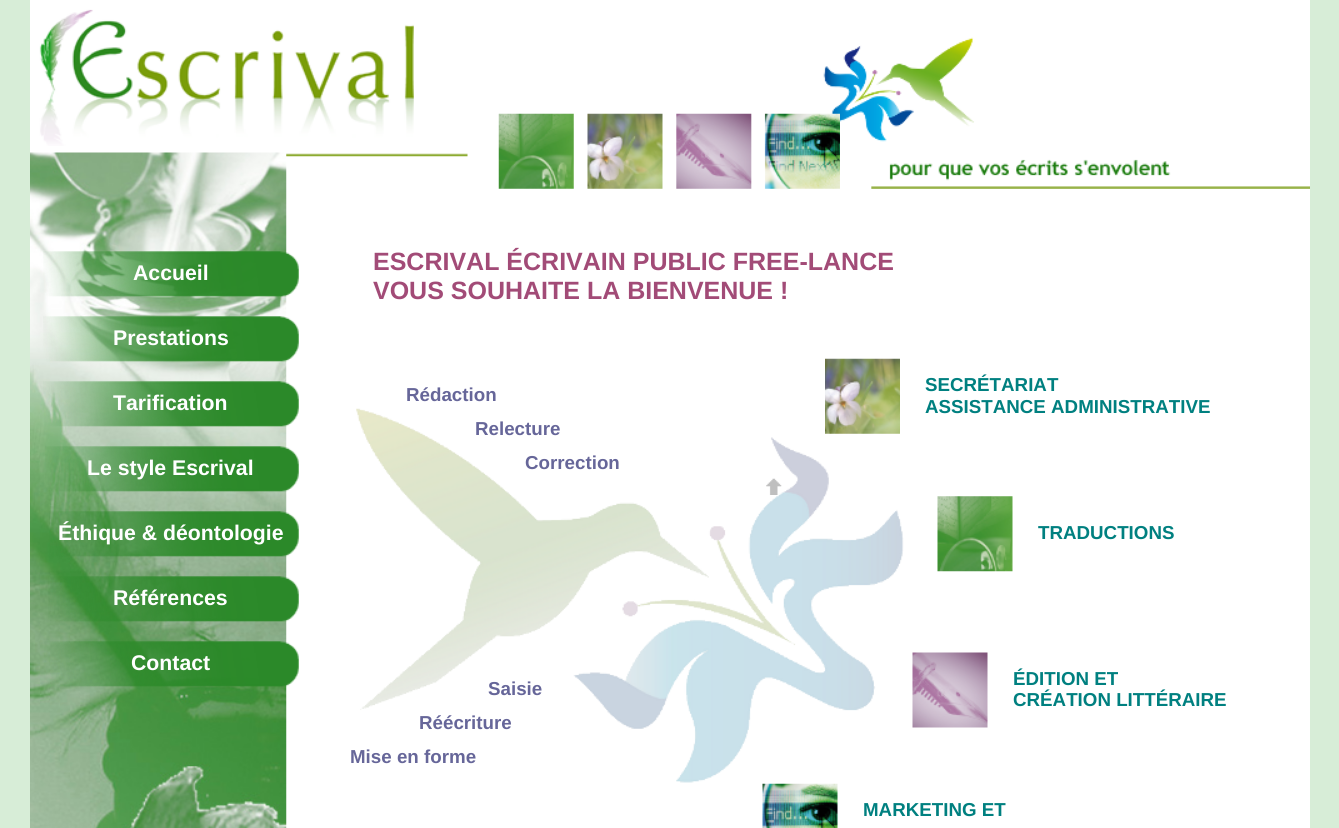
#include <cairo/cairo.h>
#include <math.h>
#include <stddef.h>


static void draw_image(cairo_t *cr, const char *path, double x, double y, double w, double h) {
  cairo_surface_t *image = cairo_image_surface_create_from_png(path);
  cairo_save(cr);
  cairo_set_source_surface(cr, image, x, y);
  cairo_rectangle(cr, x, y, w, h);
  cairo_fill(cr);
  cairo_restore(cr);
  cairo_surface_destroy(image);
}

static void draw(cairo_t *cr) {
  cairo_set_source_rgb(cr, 215 / 255.0, 237 / 255.0, 215 / 255.0);
  cairo_paint(cr);
  cairo_set_source_rgb(cr, 1, 1, 1);
  cairo_rectangle(cr, 30, 0, 1280, 828);
  cairo_fill(cr);
  draw_image(cr, "images/1.png", 39, 9, 375, 137);
  draw_image(cr, "images/2.png", 286, 153, 182, 4);
  draw_image(cr, "images/4.png", 823, 37, 487, 152);
  draw_image(cr, "images/3.png", 498, 113, 342, 76);
  draw_image(cr, "images/5.png", 30, 152, 257, 676);
  draw_image(cr, "images/6.png", 43, 251, 256, 46);
  draw_image(cr, "images/7.png", 43, 316, 256, 46);
  draw_image(cr, "images/8.png", 43, 381, 256, 46);
  draw_image(cr, "images/9.png", 45, 446, 254, 46);
  draw_image(cr, "images/10.png", 49, 511, 250, 46);
  draw_image(cr, "images/11.png", 48, 576, 251, 46);
  draw_image(cr, "images/12.png", 44, 641, 255, 46);
  draw_image(cr, "images/14.png", 356, 408, 548, 375);
  draw_image(cr, "images/13.png", 825, 358, 75, 76);
  draw_image(cr, "images/15.png", 937, 496, 76, 76);
  draw_image(cr, "images/16.png", 912, 652, 76, 76);
  draw_image(cr, "images/17.png", 762, 783, 76, 45);
  draw_image(cr, "images/18.png", 766, 478, 16, 17);
  cairo_select_font_face(cr, "Liberation Sans", CAIRO_FONT_SLANT_NORMAL, CAIRO_FONT_WEIGHT_BOLD);
  cairo_set_font_size(cr, 21.25);
  cairo_move_to(cr, 133, 280);
  cairo_show_text(cr, "Accueil");
  cairo_move_to(cr, 113, 345);
  cairo_show_text(cr, "Prestations");
  cairo_move_to(cr, 113, 410);
  cairo_show_text(cr, "Tarification");
  cairo_move_to(cr, 87, 475);
  cairo_show_text(cr, "Le style Escrival");
  cairo_move_to(cr, 58, 540);
  cairo_show_text(cr, "Éthique & déontologie");
  cairo_move_to(cr, 113, 605);
  cairo_show_text(cr, "Références");
  cairo_move_to(cr, 131, 670);
  cairo_show_text(cr, "Contact");
  cairo_set_font_size(cr, 25);
  cairo_set_source_rgb(cr, 162 / 255.0, 75 / 255.0, 119 / 255.0);
  cairo_move_to(cr, 373, 270);
  cairo_show_text(cr, "ESCRIVAL ÉCRIVAIN PUBLIC FREE-LANCE");
  cairo_move_to(cr, 373, 299);
  cairo_show_text(cr, "VOUS SOUHAITE LA BIENVENUE !");
  cairo_set_font_size(cr, 18.75);
  cairo_set_source_rgb(cr, 102 / 255.0, 102 / 255.0, 153 / 255.0);
  cairo_move_to(cr, 406, 401);
  cairo_show_text(cr, "Rédaction");
  cairo_move_to(cr, 475, 435);
  cairo_show_text(cr, "Relecture");
  cairo_move_to(cr, 525, 469);
  cairo_show_text(cr, "Correction");
  cairo_move_to(cr, 488, 695);
  cairo_show_text(cr, "Saisie");
  cairo_move_to(cr, 419, 729);
  cairo_show_text(cr, "Réécriture");
  cairo_move_to(cr, 350, 763);
  cairo_show_text(cr, "Mise en forme");
  cairo_set_source_rgb(cr, 0, 128 / 255.0, 128 / 255.0);
  cairo_move_to(cr, 925, 391);
  cairo_show_text(cr, "SECRÉTARIAT");
  cairo_move_to(cr, 925, 413);
  cairo_show_text(cr, "ASSISTANCE ADMINISTRATIVE");
  cairo_move_to(cr, 1038, 539);
  cairo_show_text(cr, "TRADUCTIONS");
  cairo_move_to(cr, 1013, 685);
  cairo_show_text(cr, "ÉDITION ET");
  cairo_move_to(cr, 1013, 706);
  cairo_show_text(cr, "CRÉATION LITTÉRAIRE");
  cairo_move_to(cr, 863, 816);
  cairo_show_text(cr, "MARKETING ET");
}

int main(void) {
  cairo_surface_t *surface = cairo_image_surface_create(CAIRO_FORMAT_RGB24, 1339, 828);
  cairo_t *cr = cairo_create(surface);
  cairo_font_options_t *options = cairo_font_options_create();
  cairo_font_options_set_hint_metrics(options, CAIRO_HINT_METRICS_OFF);
  cairo_font_options_set_hint_style(options, CAIRO_HINT_STYLE_NONE);
  cairo_set_font_options(cr, options);
  cairo_set_miter_limit(cr, 4);
  draw(cr);
  cairo_surface_write_to_png(surface, "out.png");
  cairo_font_options_destroy(options);
  cairo_destroy(cr);
  cairo_surface_destroy(surface);
  return 0;
}
